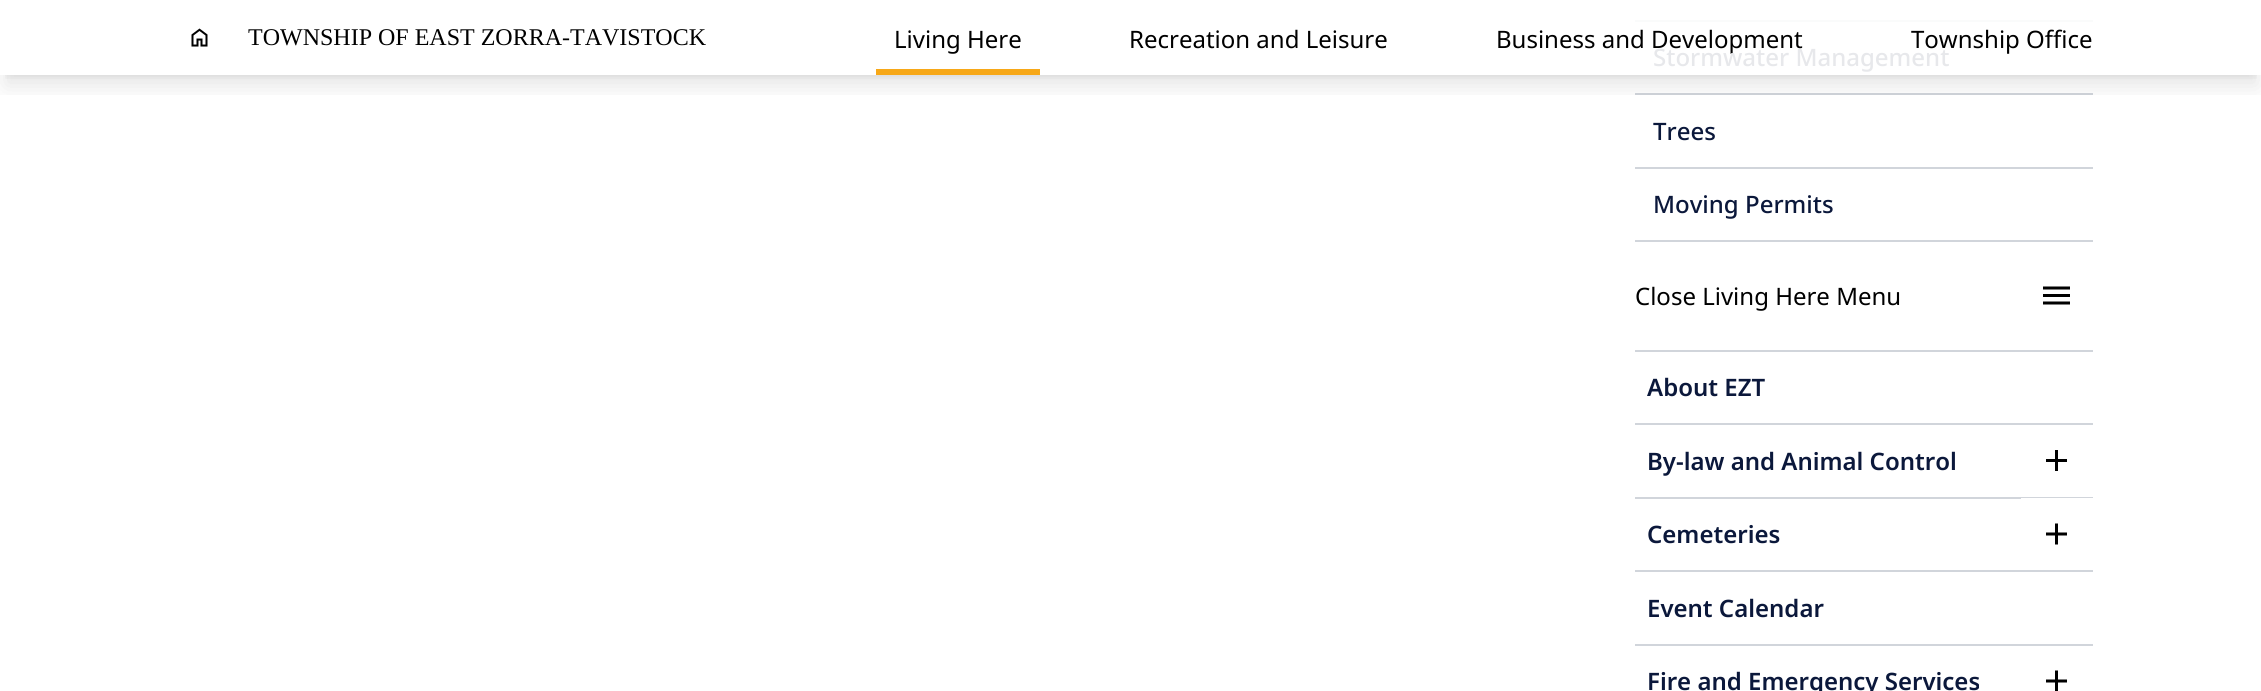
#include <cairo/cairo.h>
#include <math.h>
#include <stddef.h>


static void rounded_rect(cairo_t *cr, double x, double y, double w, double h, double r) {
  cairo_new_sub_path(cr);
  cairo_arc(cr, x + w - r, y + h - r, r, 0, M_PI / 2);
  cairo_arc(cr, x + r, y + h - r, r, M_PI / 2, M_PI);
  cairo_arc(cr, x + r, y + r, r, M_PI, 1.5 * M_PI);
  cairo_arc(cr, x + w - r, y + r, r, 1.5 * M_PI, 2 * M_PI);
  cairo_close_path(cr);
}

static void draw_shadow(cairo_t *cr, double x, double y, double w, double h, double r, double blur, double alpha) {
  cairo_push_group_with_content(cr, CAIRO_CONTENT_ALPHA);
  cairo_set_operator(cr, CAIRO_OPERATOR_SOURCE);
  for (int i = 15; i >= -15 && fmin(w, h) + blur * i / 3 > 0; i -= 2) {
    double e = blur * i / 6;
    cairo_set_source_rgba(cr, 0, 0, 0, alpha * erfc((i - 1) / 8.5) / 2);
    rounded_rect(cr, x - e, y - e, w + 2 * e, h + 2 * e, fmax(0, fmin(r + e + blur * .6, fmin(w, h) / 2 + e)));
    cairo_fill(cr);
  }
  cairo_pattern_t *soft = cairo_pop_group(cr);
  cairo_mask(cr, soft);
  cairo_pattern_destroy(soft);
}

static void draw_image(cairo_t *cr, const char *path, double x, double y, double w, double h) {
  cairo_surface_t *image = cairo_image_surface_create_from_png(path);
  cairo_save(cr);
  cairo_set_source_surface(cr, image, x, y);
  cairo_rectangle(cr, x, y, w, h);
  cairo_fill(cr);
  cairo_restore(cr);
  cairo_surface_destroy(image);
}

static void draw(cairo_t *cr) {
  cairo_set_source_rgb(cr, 1, 1, 1);
  cairo_paint(cr);
  cairo_set_source_rgb(cr, 250 / 255.0, 251 / 255.0, 251 / 255.0);
  cairo_rectangle(cr, 1635, 20, 458, 2);
  cairo_fill(cr);
  cairo_save(cr);
  cairo_rectangle(cr, 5, 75, 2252, 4);
  cairo_clip(cr);
  cairo_set_source_rgb(cr, 0, 0, 0);
  draw_shadow(cr, 6, 12, 2250, 63, 0, 4.5, 0.1);
  cairo_restore(cr);
  cairo_set_source_rgb(cr, 209 / 255.0, 213 / 255.0, 219 / 255.0);
  cairo_rectangle(cr, 1635, 93, 458, 2);
  cairo_fill(cr);
  cairo_save(cr);
  cairo_rectangle(cr, 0, 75, 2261, 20);
  cairo_clip(cr);
  cairo_set_source_rgb(cr, 0, 0, 0);
  draw_shadow(cr, 5, 20, 2253, 66, 0, 11, 0.1);
  cairo_restore(cr);
  draw_image(cr, "images/1.png", 191, 28, 17, 19);
  cairo_set_source_rgb(cr, 247 / 255.0, 168 / 255.0, 24 / 255.0);
  cairo_rectangle(cr, 876, 69, 164, 6);
  cairo_fill(cr);
  cairo_set_source_rgb(cr, 209 / 255.0, 213 / 255.0, 219 / 255.0);
  cairo_rectangle(cr, 1635, 167, 458, 2);
  cairo_fill(cr);
  cairo_rectangle(cr, 1635, 240, 458, 2);
  cairo_fill(cr);
  draw_image(cr, "images/2.png", 2043, 286, 27, 19);
  cairo_rectangle(cr, 1635, 350, 458, 2);
  cairo_fill(cr);
  cairo_rectangle(cr, 1635, 423, 458, 2);
  cairo_fill(cr);
  cairo_rectangle(cr, 1635, 497, 386, 2);
  cairo_fill(cr);
  cairo_rectangle(cr, 2021, 497, 72, 1);
  cairo_fill(cr);
  draw_image(cr, "images/3.png", 2046, 450, 21, 21);
  cairo_rectangle(cr, 1635, 570, 458, 2);
  cairo_fill(cr);
  draw_image(cr, "images/4.png", 2046, 523, 21, 22);
  cairo_rectangle(cr, 1635, 644, 458, 2);
  cairo_fill(cr);
  draw_image(cr, "images/5.png", 2046, 670, 21, 21);
  cairo_select_font_face(cr, "Liberation Serif", CAIRO_FONT_SLANT_NORMAL, CAIRO_FONT_WEIGHT_NORMAL);
  cairo_set_font_size(cr, 24);
  cairo_set_source_rgb(cr, 0, 0, 0);
  cairo_move_to(cr, 248, 45);
  cairo_show_text(cr, "TOWNSHIP OF EAST ZORRA-TAVISTOCK");
  cairo_select_font_face(cr, "Noto Sans", CAIRO_FONT_SLANT_NORMAL, CAIRO_FONT_WEIGHT_NORMAL);
  cairo_move_to(cr, 894, 48);
  cairo_show_text(cr, "Living Here");
  cairo_move_to(cr, 1129, 48);
  cairo_show_text(cr, "Recreation and Leisure");
  cairo_move_to(cr, 1496, 48);
  cairo_show_text(cr, "Business and Development");
  cairo_move_to(cr, 1911, 48);
  cairo_show_text(cr, "Township Office");
  cairo_select_font_face(cr, "Noto Sans Medium", CAIRO_FONT_SLANT_NORMAL, CAIRO_FONT_WEIGHT_NORMAL);
  cairo_set_source_rgb(cr, 231 / 255.0, 232 / 255.0, 235 / 255.0);
  cairo_move_to(cr, 1653, 66);
  cairo_show_text(cr, "Stormwater Management");
  cairo_set_source_rgb(cr, 11 / 255.0, 24 / 255.0, 59 / 255.0);
  cairo_move_to(cr, 1653, 140);
  cairo_show_text(cr, "Trees");
  cairo_move_to(cr, 1653, 213);
  cairo_show_text(cr, "Moving Permits");
  cairo_select_font_face(cr, "Noto Sans", CAIRO_FONT_SLANT_NORMAL, CAIRO_FONT_WEIGHT_NORMAL);
  cairo_set_source_rgb(cr, 0, 0, 0);
  cairo_move_to(cr, 1635, 305);
  cairo_show_text(cr, "Close Living Here Menu");
  cairo_select_font_face(cr, "Noto Sans SemiBold", CAIRO_FONT_SLANT_NORMAL, CAIRO_FONT_WEIGHT_NORMAL);
  cairo_set_source_rgb(cr, 11 / 255.0, 24 / 255.0, 59 / 255.0);
  cairo_move_to(cr, 1647, 396);
  cairo_show_text(cr, "About EZT");
  cairo_move_to(cr, 1647, 470);
  cairo_show_text(cr, "By-law and Animal Control");
  cairo_move_to(cr, 1647, 543);
  cairo_show_text(cr, "Cemeteries");
  cairo_move_to(cr, 1647, 617);
  cairo_show_text(cr, "Event Calendar");
  cairo_move_to(cr, 1647, 690);
  cairo_show_text(cr, "Fire and Emergency Services");
}

int main(void) {
  cairo_surface_t *surface = cairo_image_surface_create(CAIRO_FORMAT_RGB24, 2261, 691);
  cairo_t *cr = cairo_create(surface);
  cairo_font_options_t *options = cairo_font_options_create();
  cairo_font_options_set_hint_metrics(options, CAIRO_HINT_METRICS_OFF);
  cairo_font_options_set_hint_style(options, CAIRO_HINT_STYLE_NONE);
  cairo_set_font_options(cr, options);
  cairo_set_miter_limit(cr, 4);
  draw(cr);
  cairo_surface_write_to_png(surface, "out.png");
  cairo_font_options_destroy(options);
  cairo_destroy(cr);
  cairo_surface_destroy(surface);
  return 0;
}
